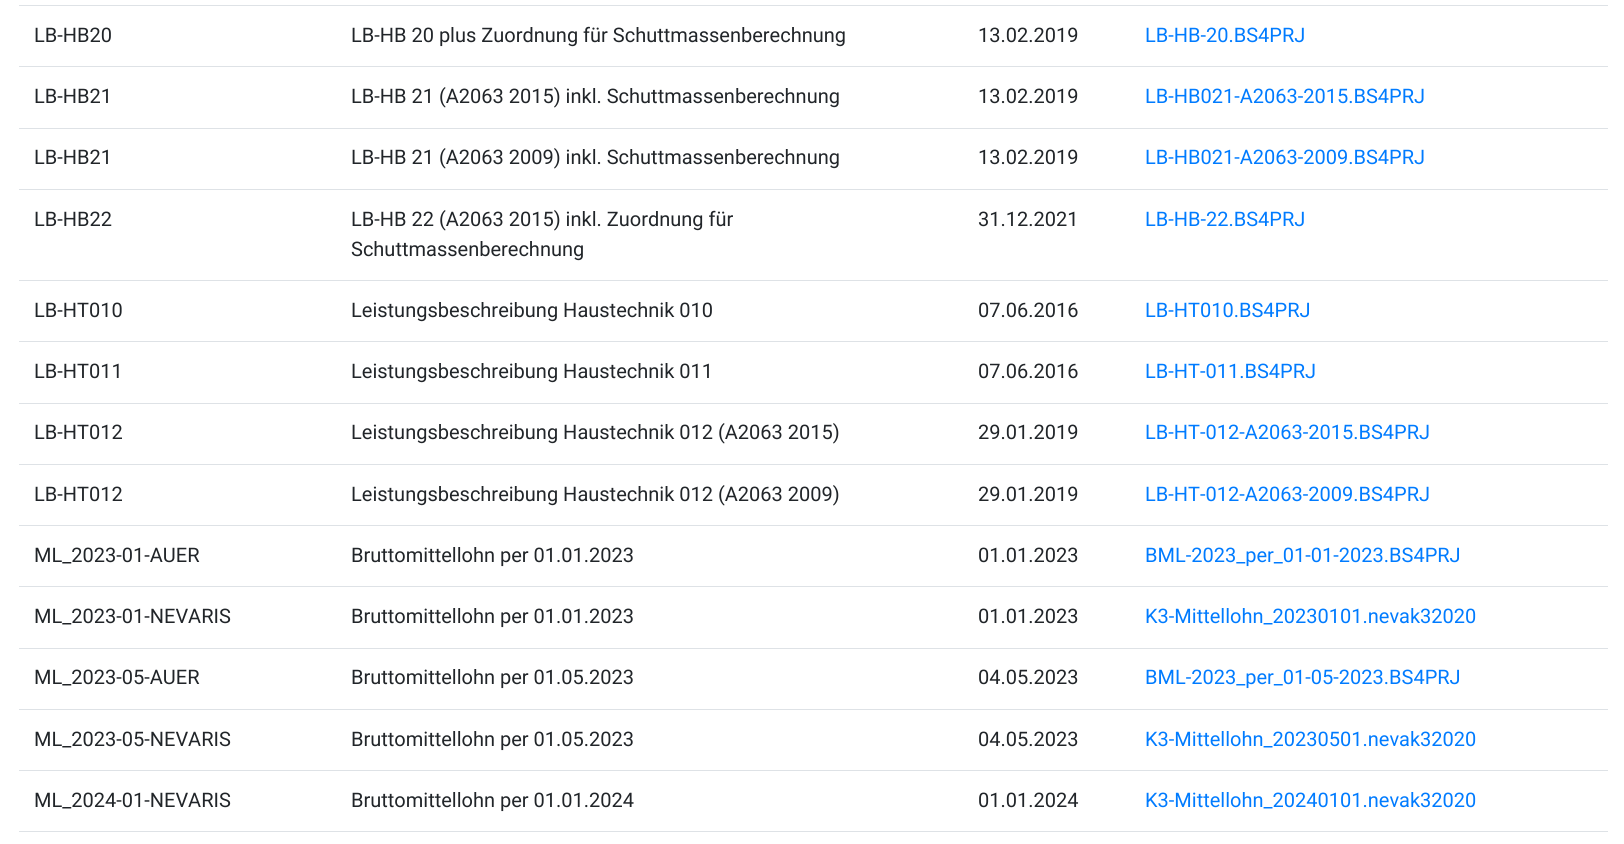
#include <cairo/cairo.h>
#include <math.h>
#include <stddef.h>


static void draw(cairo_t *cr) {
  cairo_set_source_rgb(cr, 1, 1, 1);
  cairo_paint(cr);
  cairo_set_source_rgb(cr, 222 / 255.0, 226 / 255.0, 230 / 255.0);
  cairo_rectangle(cr, 19, 5, 1589, 1);
  cairo_fill(cr);
  cairo_rectangle(cr, 19, 66, 1589, 1);
  cairo_fill(cr);
  cairo_rectangle(cr, 19, 128, 1589, 1);
  cairo_fill(cr);
  cairo_rectangle(cr, 19, 189, 1589, 1);
  cairo_fill(cr);
  cairo_rectangle(cr, 19, 280, 1589, 1);
  cairo_fill(cr);
  cairo_rectangle(cr, 19, 341, 1589, 1);
  cairo_fill(cr);
  cairo_rectangle(cr, 19, 403, 1589, 1);
  cairo_fill(cr);
  cairo_rectangle(cr, 19, 464, 1589, 1);
  cairo_fill(cr);
  cairo_rectangle(cr, 19, 525, 1589, 1);
  cairo_fill(cr);
  cairo_rectangle(cr, 19, 586, 1589, 1);
  cairo_fill(cr);
  cairo_rectangle(cr, 19, 648, 1589, 1);
  cairo_fill(cr);
  cairo_rectangle(cr, 19, 709, 1589, 1);
  cairo_fill(cr);
  cairo_rectangle(cr, 19, 770, 1589, 1);
  cairo_fill(cr);
  cairo_rectangle(cr, 19, 831, 1589, 1);
  cairo_fill(cr);
  cairo_select_font_face(cr, "Roboto", CAIRO_FONT_SLANT_NORMAL, CAIRO_FONT_WEIGHT_NORMAL);
  cairo_set_font_size(cr, 20);
  cairo_set_source_rgb(cr, 33 / 255.0, 37 / 255.0, 41 / 255.0);
  cairo_move_to(cr, 34, 42);
  cairo_show_text(cr, "LB-HB20");
  cairo_move_to(cr, 351, 42);
  cairo_show_text(cr, "LB-HB 20 plus Zuordnung für Schuttmassenberechnung");
  cairo_move_to(cr, 978, 42);
  cairo_show_text(cr, "13.02.2019");
  cairo_set_source_rgb(cr, 0, 123 / 255.0, 1);
  cairo_move_to(cr, 1145, 42);
  cairo_show_text(cr, "LB-HB-20.BS4PRJ");
  cairo_set_source_rgb(cr, 33 / 255.0, 37 / 255.0, 41 / 255.0);
  cairo_move_to(cr, 34, 103);
  cairo_show_text(cr, "LB-HB21");
  cairo_move_to(cr, 351, 103);
  cairo_show_text(cr, "LB-HB 21 (A2063 2015) inkl. Schuttmassenberechnung");
  cairo_move_to(cr, 978, 103);
  cairo_show_text(cr, "13.02.2019");
  cairo_set_source_rgb(cr, 0, 123 / 255.0, 1);
  cairo_move_to(cr, 1145, 103);
  cairo_show_text(cr, "LB-HB021-A2063-2015.BS4PRJ");
  cairo_set_source_rgb(cr, 33 / 255.0, 37 / 255.0, 41 / 255.0);
  cairo_move_to(cr, 34, 164);
  cairo_show_text(cr, "LB-HB21");
  cairo_move_to(cr, 351, 164);
  cairo_show_text(cr, "LB-HB 21 (A2063 2009) inkl. Schuttmassenberechnung");
  cairo_move_to(cr, 978, 164);
  cairo_show_text(cr, "13.02.2019");
  cairo_set_source_rgb(cr, 0, 123 / 255.0, 1);
  cairo_move_to(cr, 1145, 164);
  cairo_show_text(cr, "LB-HB021-A2063-2009.BS4PRJ");
  cairo_set_source_rgb(cr, 33 / 255.0, 37 / 255.0, 41 / 255.0);
  cairo_move_to(cr, 34, 226);
  cairo_show_text(cr, "LB-HB22");
  cairo_move_to(cr, 351, 226);
  cairo_show_text(cr, "LB-HB 22 (A2063 2015) inkl. Zuordnung für");
  cairo_move_to(cr, 351, 256);
  cairo_show_text(cr, "Schuttmassenberechnung");
  cairo_move_to(cr, 978, 226);
  cairo_show_text(cr, "31.12.2021");
  cairo_set_source_rgb(cr, 0, 123 / 255.0, 1);
  cairo_move_to(cr, 1145, 226);
  cairo_show_text(cr, "LB-HB-22.BS4PRJ");
  cairo_set_source_rgb(cr, 33 / 255.0, 37 / 255.0, 41 / 255.0);
  cairo_move_to(cr, 34, 317);
  cairo_show_text(cr, "LB-HT010");
  cairo_move_to(cr, 351, 317);
  cairo_show_text(cr, "Leistungsbeschreibung Haustechnik 010");
  cairo_move_to(cr, 978, 317);
  cairo_show_text(cr, "07.06.2016");
  cairo_set_source_rgb(cr, 0, 123 / 255.0, 1);
  cairo_move_to(cr, 1145, 317);
  cairo_show_text(cr, "LB-HT010.BS4PRJ");
  cairo_set_source_rgb(cr, 33 / 255.0, 37 / 255.0, 41 / 255.0);
  cairo_move_to(cr, 34, 378);
  cairo_show_text(cr, "LB-HT011");
  cairo_move_to(cr, 351, 378);
  cairo_show_text(cr, "Leistungsbeschreibung Haustechnik 011");
  cairo_move_to(cr, 978, 378);
  cairo_show_text(cr, "07.06.2016");
  cairo_set_source_rgb(cr, 0, 123 / 255.0, 1);
  cairo_move_to(cr, 1145, 378);
  cairo_show_text(cr, "LB-HT-011.BS4PRJ");
  cairo_set_source_rgb(cr, 33 / 255.0, 37 / 255.0, 41 / 255.0);
  cairo_move_to(cr, 34, 439);
  cairo_show_text(cr, "LB-HT012");
  cairo_move_to(cr, 351, 439);
  cairo_show_text(cr, "Leistungsbeschreibung Haustechnik 012 (A2063 2015)");
  cairo_move_to(cr, 978, 439);
  cairo_show_text(cr, "29.01.2019");
  cairo_set_source_rgb(cr, 0, 123 / 255.0, 1);
  cairo_move_to(cr, 1145, 439);
  cairo_show_text(cr, "LB-HT-012-A2063-2015.BS4PRJ");
  cairo_set_source_rgb(cr, 33 / 255.0, 37 / 255.0, 41 / 255.0);
  cairo_move_to(cr, 34, 501);
  cairo_show_text(cr, "LB-HT012");
  cairo_move_to(cr, 351, 501);
  cairo_show_text(cr, "Leistungsbeschreibung Haustechnik 012 (A2063 2009)");
  cairo_move_to(cr, 978, 501);
  cairo_show_text(cr, "29.01.2019");
  cairo_set_source_rgb(cr, 0, 123 / 255.0, 1);
  cairo_move_to(cr, 1145, 501);
  cairo_show_text(cr, "LB-HT-012-A2063-2009.BS4PRJ");
  cairo_set_source_rgb(cr, 33 / 255.0, 37 / 255.0, 41 / 255.0);
  cairo_move_to(cr, 34, 562);
  cairo_show_text(cr, "ML_2023-01-AUER");
  cairo_move_to(cr, 351, 562);
  cairo_show_text(cr, "Bruttomittellohn per 01.01.2023");
  cairo_move_to(cr, 978, 562);
  cairo_show_text(cr, "01.01.2023");
  cairo_set_source_rgb(cr, 0, 123 / 255.0, 1);
  cairo_move_to(cr, 1145, 562);
  cairo_show_text(cr, "BML-2023_per_01-01-2023.BS4PRJ");
  cairo_set_source_rgb(cr, 33 / 255.0, 37 / 255.0, 41 / 255.0);
  cairo_move_to(cr, 34, 623);
  cairo_show_text(cr, "ML_2023-01-NEVARIS");
  cairo_move_to(cr, 351, 623);
  cairo_show_text(cr, "Bruttomittellohn per 01.01.2023");
  cairo_move_to(cr, 978, 623);
  cairo_show_text(cr, "01.01.2023");
  cairo_set_source_rgb(cr, 0, 123 / 255.0, 1);
  cairo_move_to(cr, 1145, 623);
  cairo_show_text(cr, "K3-Mittellohn_20230101.nevak32020");
  cairo_set_source_rgb(cr, 33 / 255.0, 37 / 255.0, 41 / 255.0);
  cairo_move_to(cr, 34, 684);
  cairo_show_text(cr, "ML_2023-05-AUER");
  cairo_move_to(cr, 351, 684);
  cairo_show_text(cr, "Bruttomittellohn per 01.05.2023");
  cairo_move_to(cr, 978, 684);
  cairo_show_text(cr, "04.05.2023");
  cairo_set_source_rgb(cr, 0, 123 / 255.0, 1);
  cairo_move_to(cr, 1145, 684);
  cairo_show_text(cr, "BML-2023_per_01-05-2023.BS4PRJ");
  cairo_set_source_rgb(cr, 33 / 255.0, 37 / 255.0, 41 / 255.0);
  cairo_move_to(cr, 34, 746);
  cairo_show_text(cr, "ML_2023-05-NEVARIS");
  cairo_move_to(cr, 351, 746);
  cairo_show_text(cr, "Bruttomittellohn per 01.05.2023");
  cairo_move_to(cr, 978, 746);
  cairo_show_text(cr, "04.05.2023");
  cairo_set_source_rgb(cr, 0, 123 / 255.0, 1);
  cairo_move_to(cr, 1145, 746);
  cairo_show_text(cr, "K3-Mittellohn_20230501.nevak32020");
  cairo_set_source_rgb(cr, 33 / 255.0, 37 / 255.0, 41 / 255.0);
  cairo_move_to(cr, 34, 807);
  cairo_show_text(cr, "ML_2024-01-NEVARIS");
  cairo_move_to(cr, 351, 807);
  cairo_show_text(cr, "Bruttomittellohn per 01.01.2024");
  cairo_move_to(cr, 978, 807);
  cairo_show_text(cr, "01.01.2024");
  cairo_set_source_rgb(cr, 0, 123 / 255.0, 1);
  cairo_move_to(cr, 1145, 807);
  cairo_show_text(cr, "K3-Mittellohn_20240101.nevak32020");
}

int main(void) {
  cairo_surface_t *surface = cairo_image_surface_create(CAIRO_FORMAT_RGB24, 1624, 844);
  cairo_t *cr = cairo_create(surface);
  cairo_font_options_t *options = cairo_font_options_create();
  cairo_font_options_set_hint_metrics(options, CAIRO_HINT_METRICS_OFF);
  cairo_font_options_set_hint_style(options, CAIRO_HINT_STYLE_NONE);
  cairo_set_font_options(cr, options);
  cairo_set_miter_limit(cr, 4);
  draw(cr);
  cairo_surface_write_to_png(surface, "out.png");
  cairo_font_options_destroy(options);
  cairo_destroy(cr);
  cairo_surface_destroy(surface);
  return 0;
}
